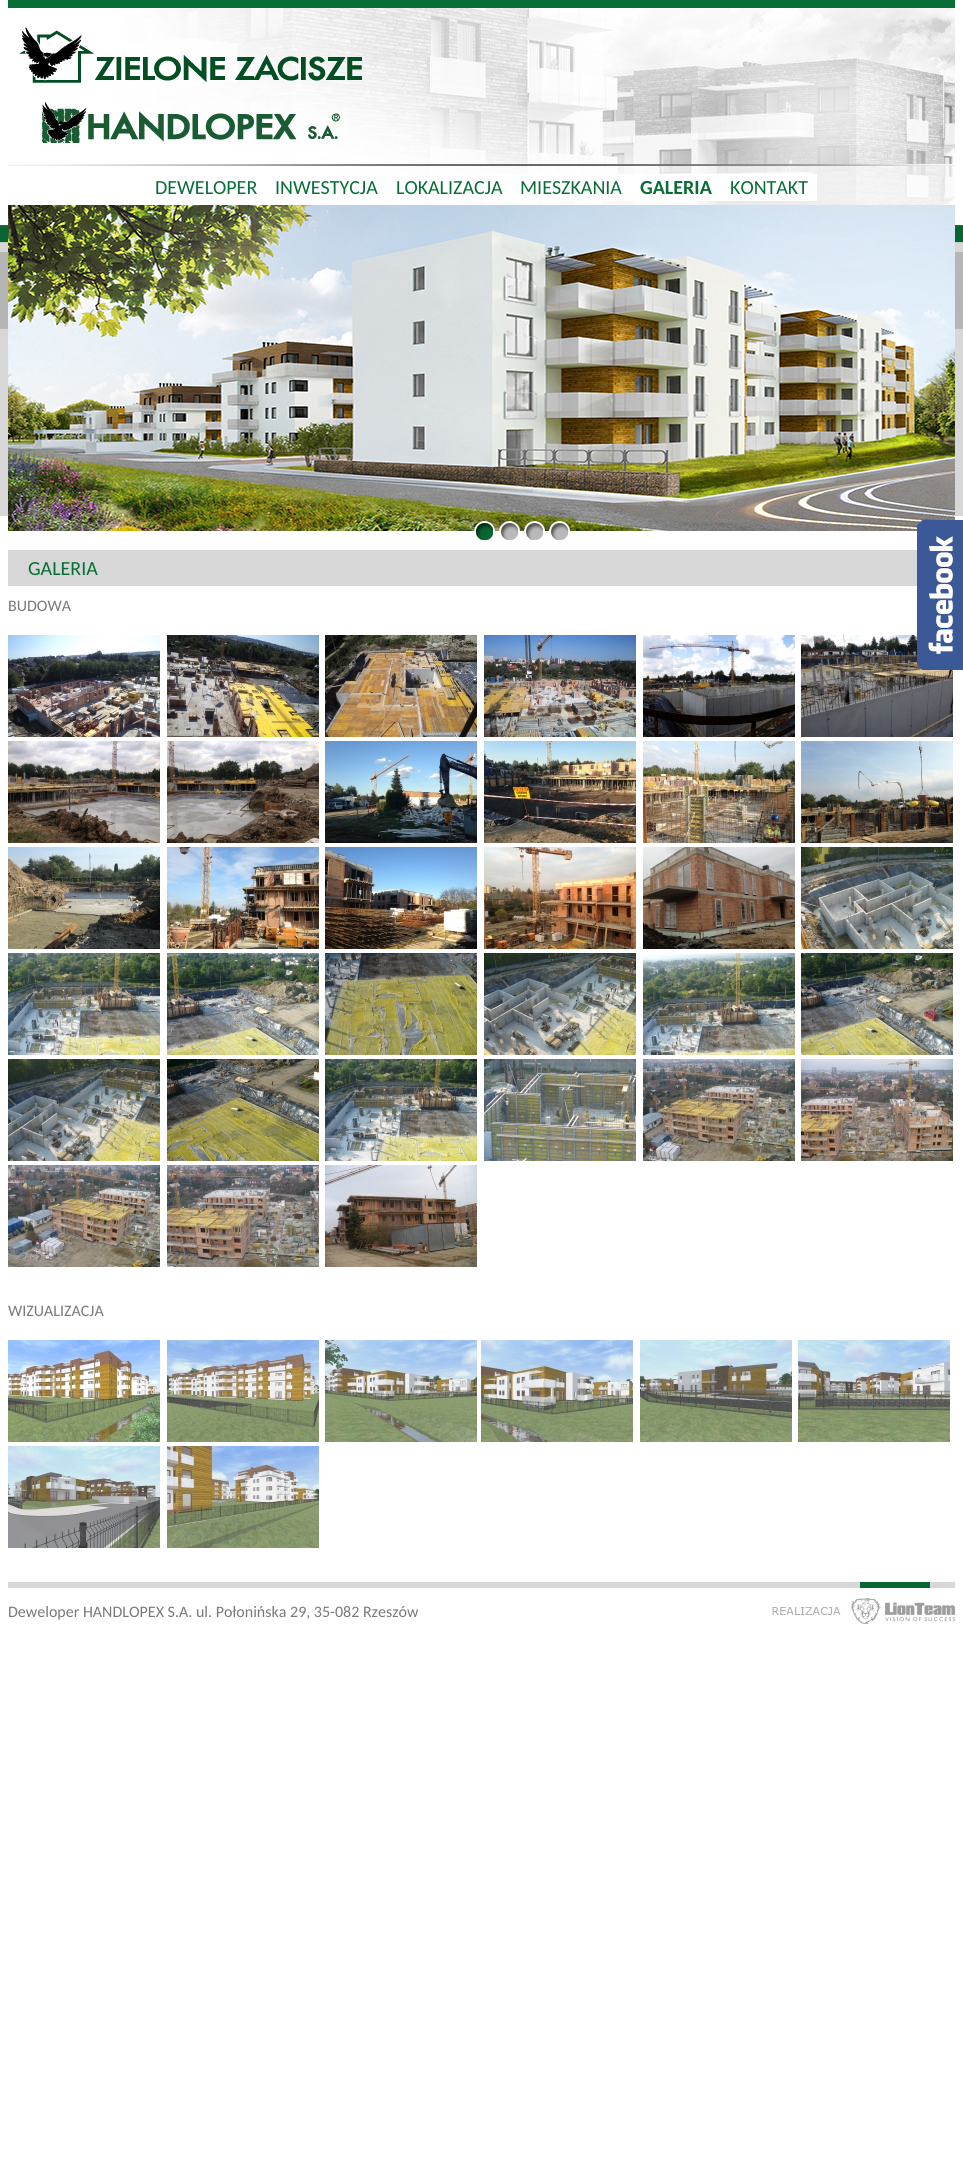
#include <cairo/cairo.h>
#include <math.h>
#include <stddef.h>


static void draw_image(cairo_t *cr, const char *path, double x, double y, double w, double h) {
  cairo_surface_t *image = cairo_image_surface_create_from_png(path);
  cairo_save(cr);
  cairo_set_source_surface(cr, image, x, y);
  cairo_rectangle(cr, x, y, w, h);
  cairo_fill(cr);
  cairo_restore(cr);
  cairo_surface_destroy(image);
}

static void draw(cairo_t *cr) {
  cairo_set_source_rgb(cr, 1, 1, 1);
  cairo_paint(cr);
  draw_image(cr, "images/1.png", 0, 225, 963, 291);
  draw_image(cr, "images/2.png", 8, 0, 947, 205);
  draw_image(cr, "images/3.png", 19, 27, 343, 56);
  draw_image(cr, "images/4.png", 42, 102, 298, 41);
  cairo_set_source_rgba(cr, 1, 1, 1, 0.6);
  cairo_rectangle(cr, 485, 166, 470, 39);
  cairo_fill(cr);
  draw_image(cr, "images/5.png", 8, 164, 947, 2);
  cairo_set_source_rgb(cr, 1, 1, 1);
  cairo_rectangle(cr, 496, 174, 321, 27);
  cairo_fill(cr);
  draw_image(cr, "images/6.png", 8, 205, 947, 326);
  draw_image(cr, "images/7.png", 474, 521, 21, 19);
  draw_image(cr, "images/8.png", 499, 521, 21, 19);
  draw_image(cr, "images/9.png", 524, 521, 21, 19);
  draw_image(cr, "images/10.png", 549, 521, 21, 19);
  cairo_set_source_rgb(cr, 215 / 255.0, 215 / 255.0, 215 / 255.0);
  cairo_rectangle(cr, 8, 550, 909, 36);
  cairo_fill(cr);
  draw_image(cr, "images/11.png", 8, 635, 152, 102);
  draw_image(cr, "images/12.png", 167, 635, 152, 102);
  draw_image(cr, "images/13.png", 325, 635, 152, 102);
  draw_image(cr, "images/14.png", 484, 635, 152, 102);
  draw_image(cr, "images/15.png", 643, 635, 152, 102);
  draw_image(cr, "images/16.png", 801, 635, 152, 102);
  draw_image(cr, "images/17.png", 8, 741, 152, 102);
  draw_image(cr, "images/18.png", 167, 741, 152, 102);
  draw_image(cr, "images/19.png", 325, 741, 152, 102);
  draw_image(cr, "images/20.png", 484, 741, 152, 102);
  draw_image(cr, "images/21.png", 643, 741, 152, 102);
  draw_image(cr, "images/22.png", 801, 741, 152, 102);
  draw_image(cr, "images/23.png", 8, 847, 152, 102);
  draw_image(cr, "images/24.png", 167, 847, 152, 102);
  draw_image(cr, "images/25.png", 325, 847, 152, 102);
  draw_image(cr, "images/26.png", 484, 847, 152, 102);
  draw_image(cr, "images/27.png", 643, 847, 152, 102);
  draw_image(cr, "images/28.png", 801, 847, 152, 102);
  draw_image(cr, "images/29.png", 8, 953, 152, 102);
  draw_image(cr, "images/30.png", 167, 953, 152, 102);
  draw_image(cr, "images/31.png", 325, 953, 152, 102);
  draw_image(cr, "images/32.png", 484, 953, 152, 102);
  draw_image(cr, "images/33.png", 643, 953, 152, 102);
  draw_image(cr, "images/34.png", 801, 953, 152, 102);
  draw_image(cr, "images/35.png", 8, 1059, 152, 102);
  draw_image(cr, "images/36.png", 167, 1059, 152, 102);
  draw_image(cr, "images/37.png", 325, 1059, 152, 102);
  draw_image(cr, "images/38.png", 484, 1059, 152, 102);
  draw_image(cr, "images/39.png", 643, 1059, 152, 102);
  draw_image(cr, "images/40.png", 801, 1059, 152, 102);
  draw_image(cr, "images/41.png", 8, 1165, 152, 102);
  draw_image(cr, "images/42.png", 167, 1165, 152, 102);
  draw_image(cr, "images/43.png", 325, 1165, 152, 102);
  draw_image(cr, "images/44.png", 8, 1340, 152, 102);
  draw_image(cr, "images/45.png", 167, 1340, 152, 102);
  draw_image(cr, "images/46.png", 325, 1340, 152, 102);
  draw_image(cr, "images/47.png", 481, 1340, 152, 102);
  draw_image(cr, "images/48.png", 640, 1340, 152, 102);
  draw_image(cr, "images/49.png", 798, 1340, 152, 102);
  draw_image(cr, "images/50.png", 8, 1446, 152, 102);
  draw_image(cr, "images/51.png", 167, 1446, 152, 102);
  cairo_rectangle(cr, 8, 1582, 947, 6);
  cairo_fill(cr);
  cairo_set_source_rgb(cr, 7 / 255.0, 102 / 255.0, 49 / 255.0);
  cairo_rectangle(cr, 860, 1582, 70, 6);
  cairo_fill(cr);
  draw_image(cr, "images/52.png", 772, 1598, 183, 26);
  draw_image(cr, "images/53.png", 917, 520, 46, 150);
  cairo_select_font_face(cr, "Carlito", CAIRO_FONT_SLANT_NORMAL, CAIRO_FONT_WEIGHT_NORMAL);
  cairo_set_font_size(cr, 20);
  cairo_set_source_rgb(cr, 8 / 255.0, 109 / 255.0, 54 / 255.0);
  cairo_move_to(cr, 155, 194);
  cairo_show_text(cr, "DEWELOPER");
  cairo_move_to(cr, 275, 194);
  cairo_show_text(cr, "INWESTYCJA");
  cairo_move_to(cr, 396, 194);
  cairo_show_text(cr, "LOKALIZACJA");
  cairo_move_to(cr, 520, 194);
  cairo_show_text(cr, "MIESZKANIA");
  cairo_select_font_face(cr, "Carlito", CAIRO_FONT_SLANT_NORMAL, CAIRO_FONT_WEIGHT_BOLD);
  cairo_move_to(cr, 640, 194);
  cairo_show_text(cr, "GALERIA");
  cairo_select_font_face(cr, "Carlito", CAIRO_FONT_SLANT_NORMAL, CAIRO_FONT_WEIGHT_NORMAL);
  cairo_move_to(cr, 730, 194);
  cairo_show_text(cr, "KONTAKT");
  cairo_move_to(cr, 28, 575);
  cairo_show_text(cr, "GALERIA");
  cairo_set_font_size(cr, 16);
  cairo_set_source_rgb(cr, 121 / 255.0, 121 / 255.0, 121 / 255.0);
  cairo_move_to(cr, 8, 611);
  cairo_show_text(cr, "BUDOWA");
  cairo_move_to(cr, 8, 1316);
  cairo_show_text(cr, "WIZUALIZACJA");
  cairo_move_to(cr, 8, 1617);
  cairo_show_text(cr, "Deweloper HANDLOPEX S.A. ul. Połonińska 29, 35-082 Rzeszów");
}

int main(void) {
  cairo_surface_t *surface = cairo_image_surface_create(CAIRO_FORMAT_RGB24, 963, 2174);
  cairo_t *cr = cairo_create(surface);
  cairo_font_options_t *options = cairo_font_options_create();
  cairo_font_options_set_hint_metrics(options, CAIRO_HINT_METRICS_OFF);
  cairo_font_options_set_hint_style(options, CAIRO_HINT_STYLE_NONE);
  cairo_set_font_options(cr, options);
  cairo_set_miter_limit(cr, 4);
  draw(cr);
  cairo_surface_write_to_png(surface, "out.png");
  cairo_font_options_destroy(options);
  cairo_destroy(cr);
  cairo_surface_destroy(surface);
  return 0;
}
